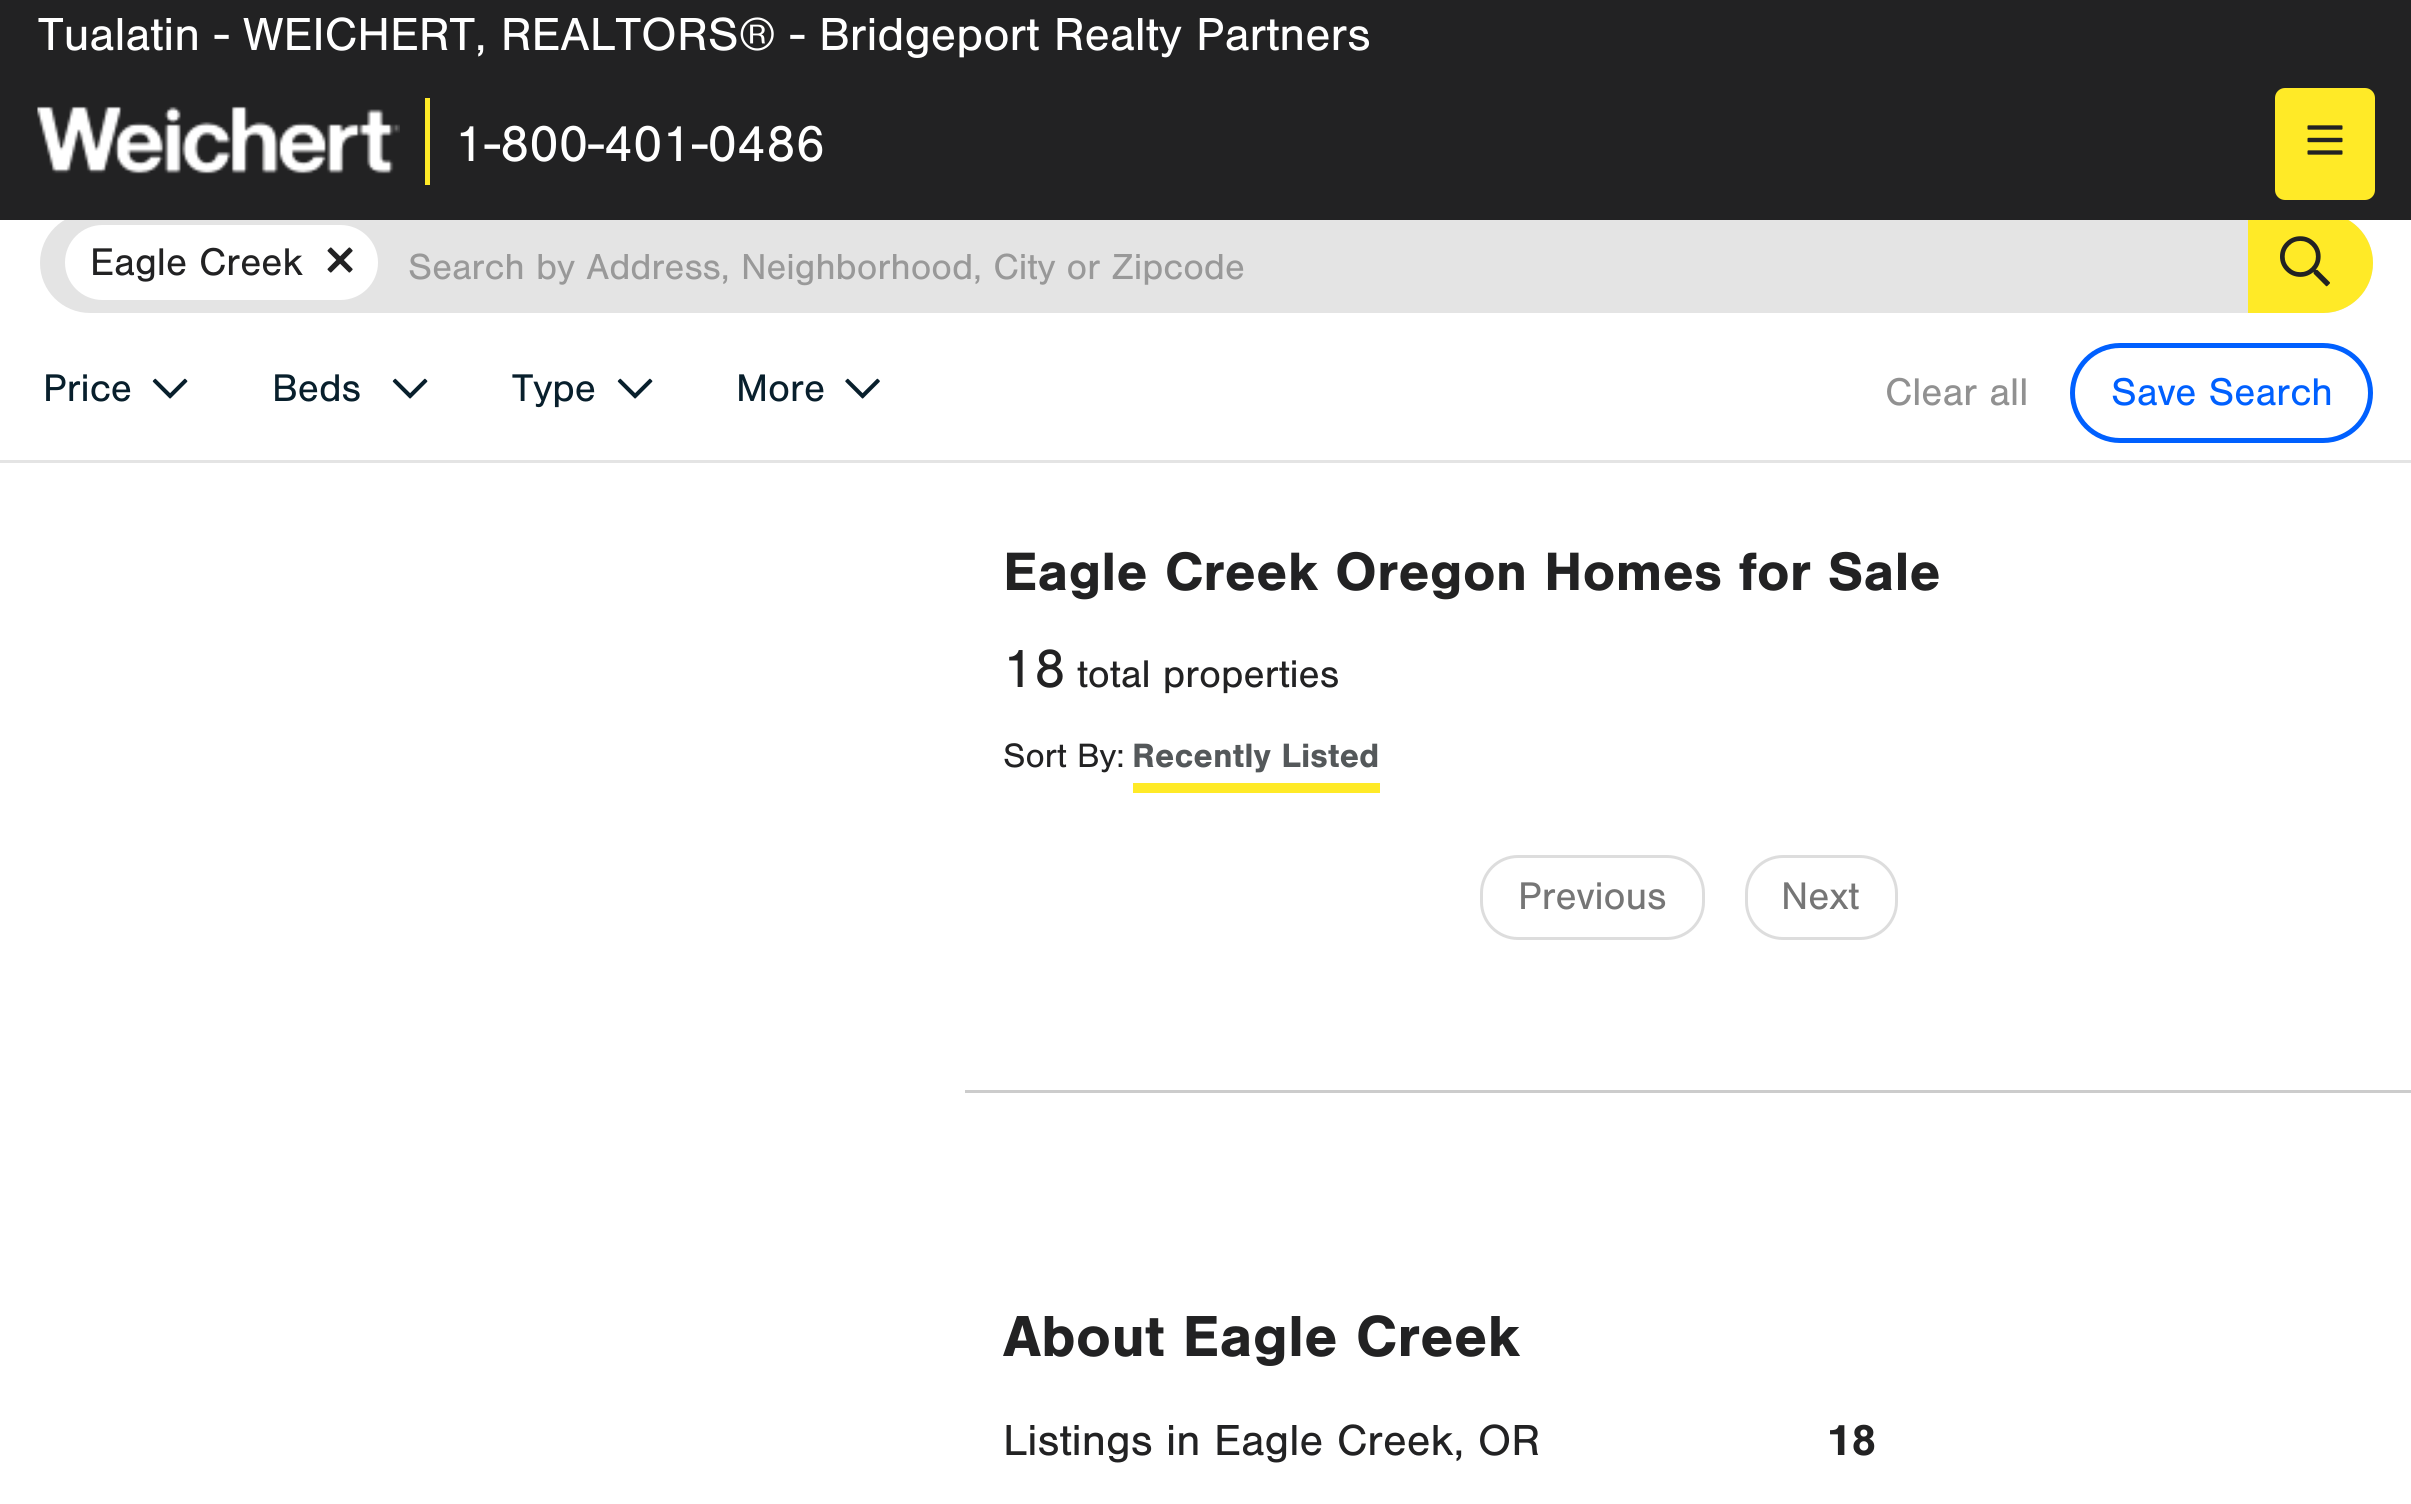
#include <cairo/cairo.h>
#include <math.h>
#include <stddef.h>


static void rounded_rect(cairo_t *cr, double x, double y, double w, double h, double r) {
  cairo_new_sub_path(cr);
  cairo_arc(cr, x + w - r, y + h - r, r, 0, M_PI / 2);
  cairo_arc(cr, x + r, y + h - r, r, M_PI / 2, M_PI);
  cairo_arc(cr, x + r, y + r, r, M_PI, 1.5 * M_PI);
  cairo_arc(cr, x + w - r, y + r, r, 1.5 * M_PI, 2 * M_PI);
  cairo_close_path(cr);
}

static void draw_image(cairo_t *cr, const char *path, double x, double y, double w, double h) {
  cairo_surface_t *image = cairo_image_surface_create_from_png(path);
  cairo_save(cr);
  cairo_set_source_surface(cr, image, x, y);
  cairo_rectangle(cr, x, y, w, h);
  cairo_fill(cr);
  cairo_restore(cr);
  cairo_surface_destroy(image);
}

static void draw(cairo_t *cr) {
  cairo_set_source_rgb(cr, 1, 1, 1);
  cairo_paint(cr);
  cairo_set_source_rgb(cr, 228 / 255.0, 228 / 255.0, 228 / 255.0);
  rounded_rect(cr, 40, 213, 2333, 100, 50);
  cairo_fill(cr);
  cairo_set_source_rgb(cr, 1, 234 / 255.0, 39 / 255.0);
  cairo_new_path(cr);
  cairo_move_to(cr, 2248, 213);
  cairo_line_to(cr, 2323, 213);
  cairo_curve_to(cr, 2350.5, 213, 2373, 235.5, 2373, 263);
  cairo_curve_to(cr, 2373, 290.5, 2350.5, 313, 2323, 313);
  cairo_line_to(cr, 2248, 313);
  cairo_close_path(cr);
  cairo_fill(cr);
  cairo_set_source_rgb(cr, 34 / 255.0, 34 / 255.0, 35 / 255.0);
  cairo_rectangle(cr, 0, 0, 2411, 220);
  cairo_fill(cr);
  draw_image(cr, "images/1.png", 37, 106, 363, 68);
  cairo_set_source_rgb(cr, 1, 234 / 255.0, 39 / 255.0);
  cairo_rectangle(cr, 425, 98, 5, 87);
  cairo_fill(cr);
  rounded_rect(cr, 2275, 88, 100, 112, 10);
  cairo_fill(cr);
  draw_image(cr, "images/2.png", 2307, 125, 36, 30);
  cairo_set_source_rgb(cr, 228 / 255.0, 228 / 255.0, 228 / 255.0);
  cairo_rectangle(cr, 0, 460, 2411, 3);
  cairo_fill(cr);
  cairo_set_source_rgb(cr, 1, 1, 1);
  rounded_rect(cr, 65, 225, 313, 75, 37.5);
  cairo_fill(cr);
  draw_image(cr, "images/3.png", 327, 247, 26, 26);
  draw_image(cr, "images/4.png", 2280, 236, 50, 51);
  draw_image(cr, "images/5.png", 152, 378, 36, 21);
  draw_image(cr, "images/5.png", 392, 378, 36, 21);
  draw_image(cr, "images/5.png", 617, 378, 36, 21);
  draw_image(cr, "images/6.png", 845, 378, 35, 21);
  rounded_rect(cr, 2072.5, 345.5, 298, 95, 47.5);
  cairo_set_source_rgb(cr, 0, 96 / 255.0, 1);
  cairo_set_line_width(cr, 5);
  cairo_stroke(cr);
  cairo_set_source_rgb(cr, 1, 234 / 255.0, 39 / 255.0);
  cairo_rectangle(cr, 1133, 783, 247, 10);
  cairo_fill(cr);
  rounded_rect(cr, 1481.5, 856.5, 222, 82, 36.5);
  cairo_set_source_rgb(cr, 221 / 255.0, 221 / 255.0, 221 / 255.0);
  cairo_set_line_width(cr, 3);
  cairo_stroke(cr);
  rounded_rect(cr, 1746.5, 856.5, 150, 82, 36.5);
  cairo_stroke(cr);
  cairo_set_source_rgb(cr, 204 / 255.0, 204 / 255.0, 204 / 255.0);
  cairo_rectangle(cr, 965, 1090, 1446, 3);
  cairo_fill(cr);
  cairo_select_font_face(cr, "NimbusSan", CAIRO_FONT_SLANT_NORMAL, CAIRO_FONT_WEIGHT_NORMAL);
  cairo_set_font_size(cr, 48);
  cairo_set_source_rgb(cr, 1, 1, 1);
  cairo_move_to(cr, 38, 50);
  cairo_show_text(cr, "Tualatin - WEICHERT, REALTORS® - Bridgeport Realty Partners");
  cairo_set_font_size(cr, 52.5);
  cairo_move_to(cr, 455, 161);
  cairo_show_text(cr, "1-800-401-0486");
  cairo_set_font_size(cr, 40);
  cairo_set_source_rgb(cr, 34 / 255.0, 34 / 255.0, 35 / 255.0);
  cairo_move_to(cr, 90, 275);
  cairo_show_text(cr, "Eagle Creek");
  cairo_set_font_size(cr, 37.5);
  cairo_set_source_rgb(cr, 153 / 255.0, 153 / 255.0, 153 / 255.0);
  cairo_move_to(cr, 408, 279);
  cairo_show_text(cr, "Search by Address, Neighborhood, City or Zipcode");
  cairo_set_font_size(cr, 40);
  cairo_set_source_rgb(cr, 8 / 255.0, 31 / 255.0, 44 / 255.0);
  cairo_move_to(cr, 43, 401);
  cairo_show_text(cr, "Price");
  cairo_move_to(cr, 272, 401);
  cairo_show_text(cr, "Beds");
  cairo_move_to(cr, 512, 401);
  cairo_show_text(cr, "Type");
  cairo_move_to(cr, 736, 401);
  cairo_show_text(cr, "More");
  cairo_set_source_rgb(cr, 145 / 255.0, 145 / 255.0, 145 / 255.0);
  cairo_move_to(cr, 1885, 405);
  cairo_show_text(cr, "Clear all");
  cairo_set_source_rgb(cr, 0, 96 / 255.0, 1);
  cairo_move_to(cr, 2111, 405);
  cairo_show_text(cr, "Save Search");
  cairo_select_font_face(cr, "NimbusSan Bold", CAIRO_FONT_SLANT_NORMAL, CAIRO_FONT_WEIGHT_BOLD);
  cairo_set_font_size(cr, 56);
  cairo_set_source_rgb(cr, 34 / 255.0, 34 / 255.0, 35 / 255.0);
  cairo_move_to(cr, 1003, 590);
  cairo_show_text(cr, "Eagle Creek Oregon Homes for Sale");
  cairo_select_font_face(cr, "NimbusSan", CAIRO_FONT_SLANT_NORMAL, CAIRO_FONT_WEIGHT_NORMAL);
  cairo_move_to(cr, 1003, 687);
  cairo_show_text(cr, "18");
  cairo_set_font_size(cr, 40);
  cairo_move_to(cr, 1077, 687);
  cairo_show_text(cr, "total properties");
  cairo_set_font_size(cr, 35);
  cairo_move_to(cr, 1003, 767);
  cairo_show_text(cr, "Sort By:");
  cairo_select_font_face(cr, "NimbusSan Bold", CAIRO_FONT_SLANT_NORMAL, CAIRO_FONT_WEIGHT_BOLD);
  cairo_set_source_rgb(cr, 84 / 255.0, 88 / 255.0, 90 / 255.0);
  cairo_move_to(cr, 1132, 767);
  cairo_show_text(cr, "Recently Listed");
  cairo_select_font_face(cr, "NimbusSan", CAIRO_FONT_SLANT_NORMAL, CAIRO_FONT_WEIGHT_NORMAL);
  cairo_set_font_size(cr, 40);
  cairo_set_source_rgb(cr, 118 / 255.0, 118 / 255.0, 118 / 255.0);
  cairo_move_to(cr, 1518, 909);
  cairo_show_text(cr, "Previous");
  cairo_move_to(cr, 1781, 909);
  cairo_show_text(cr, "Next");
  cairo_select_font_face(cr, "NimbusSan Bold", CAIRO_FONT_SLANT_NORMAL, CAIRO_FONT_WEIGHT_BOLD);
  cairo_set_font_size(cr, 60);
  cairo_set_source_rgb(cr, 34 / 255.0, 34 / 255.0, 35 / 255.0);
  cairo_move_to(cr, 1003, 1356);
  cairo_show_text(cr, "About Eagle Creek");
  cairo_select_font_face(cr, "NimbusSan", CAIRO_FONT_SLANT_NORMAL, CAIRO_FONT_WEIGHT_NORMAL);
  cairo_set_font_size(cr, 45);
  cairo_move_to(cr, 1003, 1455);
  cairo_show_text(cr, "Listings in Eagle Creek, OR");
  cairo_select_font_face(cr, "NimbusSan Bold", CAIRO_FONT_SLANT_NORMAL, CAIRO_FONT_WEIGHT_BOLD);
  cairo_move_to(cr, 1826, 1455);
  cairo_show_text(cr, "18");
}

int main(void) {
  cairo_surface_t *surface = cairo_image_surface_create(CAIRO_FORMAT_RGB24, 2411, 1504);
  cairo_t *cr = cairo_create(surface);
  cairo_font_options_t *options = cairo_font_options_create();
  cairo_font_options_set_hint_metrics(options, CAIRO_HINT_METRICS_OFF);
  cairo_font_options_set_hint_style(options, CAIRO_HINT_STYLE_NONE);
  cairo_set_font_options(cr, options);
  cairo_set_miter_limit(cr, 4);
  draw(cr);
  cairo_surface_write_to_png(surface, "out.png");
  cairo_font_options_destroy(options);
  cairo_destroy(cr);
  cairo_surface_destroy(surface);
  return 0;
}
